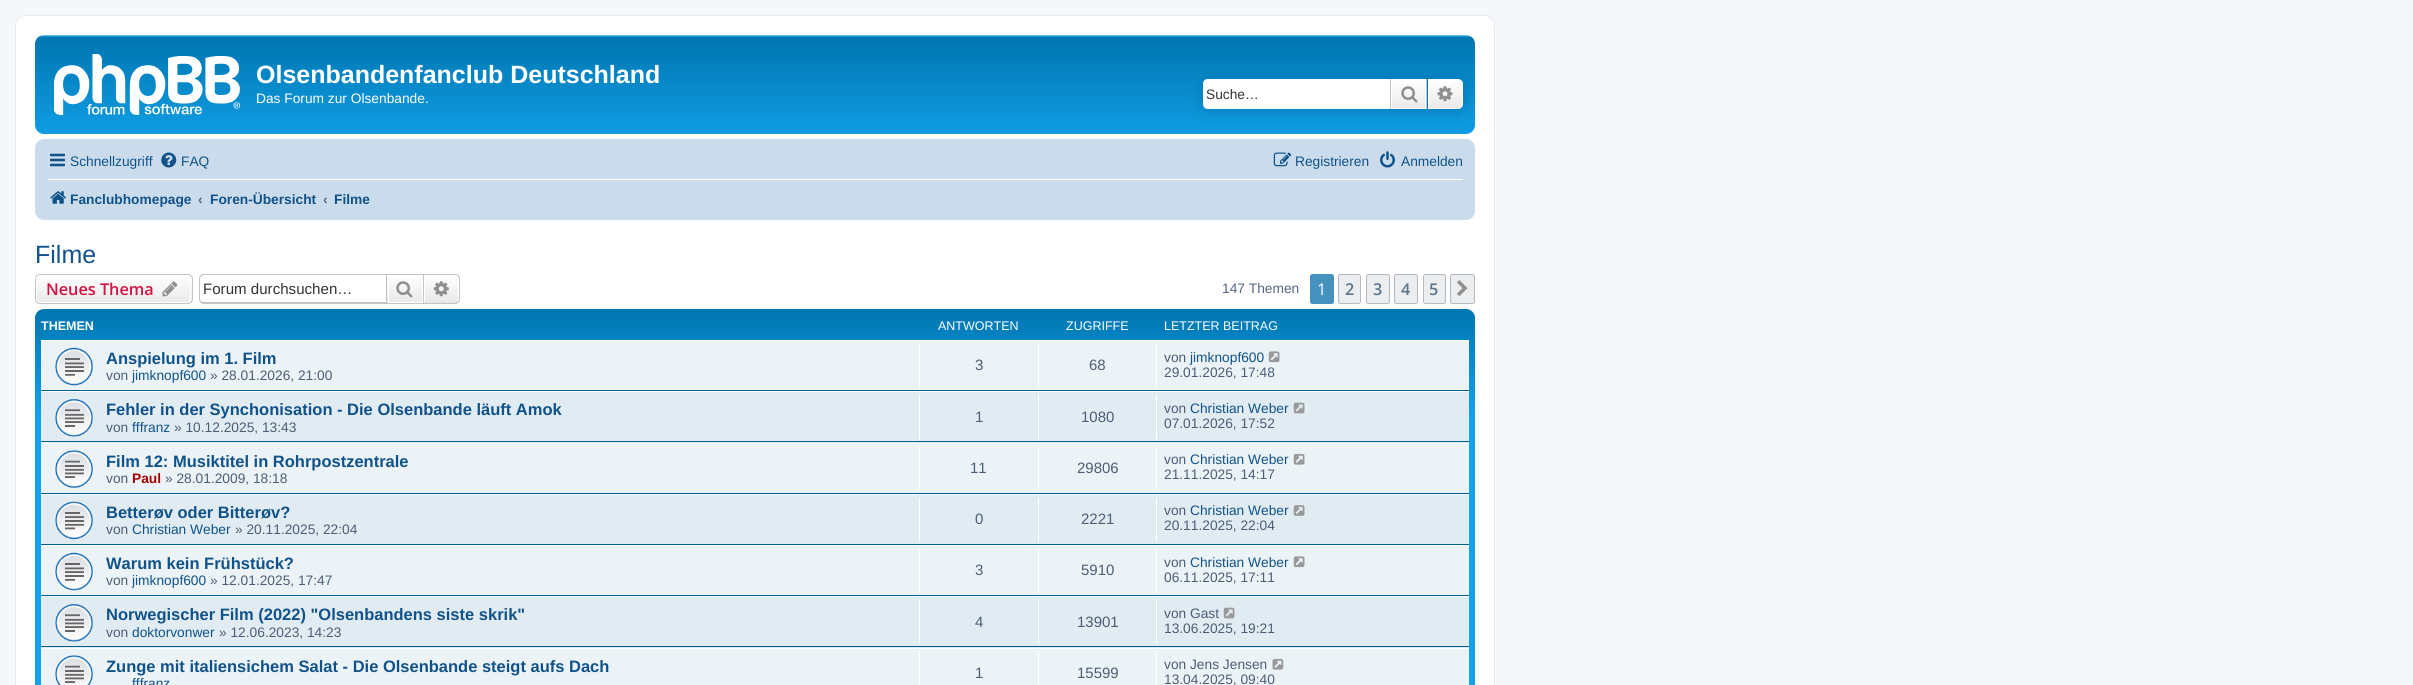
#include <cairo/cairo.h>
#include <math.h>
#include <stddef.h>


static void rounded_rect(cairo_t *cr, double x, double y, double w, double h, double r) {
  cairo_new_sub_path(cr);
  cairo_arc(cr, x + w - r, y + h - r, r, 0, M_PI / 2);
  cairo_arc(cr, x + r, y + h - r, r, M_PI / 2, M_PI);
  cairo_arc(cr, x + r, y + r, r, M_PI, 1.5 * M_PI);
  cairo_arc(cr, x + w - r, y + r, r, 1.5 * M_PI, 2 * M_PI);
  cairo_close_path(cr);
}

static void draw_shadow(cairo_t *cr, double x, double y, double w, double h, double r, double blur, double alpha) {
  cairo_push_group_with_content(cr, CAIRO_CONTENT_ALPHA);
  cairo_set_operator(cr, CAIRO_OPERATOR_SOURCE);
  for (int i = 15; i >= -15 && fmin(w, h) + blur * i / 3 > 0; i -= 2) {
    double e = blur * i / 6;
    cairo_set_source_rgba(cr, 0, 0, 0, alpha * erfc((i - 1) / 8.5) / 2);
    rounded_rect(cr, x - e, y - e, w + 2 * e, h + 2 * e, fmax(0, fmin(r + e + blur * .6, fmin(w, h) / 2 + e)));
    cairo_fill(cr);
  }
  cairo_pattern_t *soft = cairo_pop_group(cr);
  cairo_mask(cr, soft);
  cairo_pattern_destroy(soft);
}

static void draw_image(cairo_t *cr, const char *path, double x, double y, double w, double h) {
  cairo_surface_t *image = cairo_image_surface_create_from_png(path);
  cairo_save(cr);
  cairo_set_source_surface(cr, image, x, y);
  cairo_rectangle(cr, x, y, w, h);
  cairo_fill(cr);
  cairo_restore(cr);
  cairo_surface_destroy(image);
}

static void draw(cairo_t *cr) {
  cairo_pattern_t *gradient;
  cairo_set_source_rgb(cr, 245 / 255.0, 247 / 255.0, 250 / 255.0);
  cairo_paint(cr);
  cairo_set_source_rgb(cr, 1, 1, 1);
  rounded_rect(cr, 15.5, 15.5, 1479, 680, 9.5);
  cairo_fill_preserve(cr);
  cairo_set_source_rgb(cr, 230 / 255.0, 233 / 255.0, 237 / 255.0);
  cairo_set_line_width(cr, 1);
  cairo_stroke(cr);
  gradient = cairo_pattern_create_linear(755, 35, 755, 150);
  cairo_pattern_add_color_stop_rgba(gradient, 0, 106 / 255.0, 206 / 255.0, 1, 1);
  cairo_pattern_add_color_stop_rgba(gradient, 0.02, 0, 118 / 255.0, 177 / 255.0, 1);
  cairo_pattern_add_color_stop_rgba(gradient, 1, 18 / 255.0, 163 / 255.0, 235 / 255.0, 1);
  cairo_set_source(cr, gradient);
  cairo_pattern_destroy(gradient);
  rounded_rect(cr, 35, 35, 1440, 99, 9);
  cairo_fill(cr);
  draw_image(cr, "images/1.png", 54, 54, 186, 61);
  cairo_set_source_rgb(cr, 0, 117 / 255.0, 176 / 255.0);
  draw_shadow(cr, 1203, 79, 260, 30, 5, 6, 1);
  cairo_set_source_rgb(cr, 1, 1, 1);
  cairo_new_path(cr);
  cairo_move_to(cr, 1208, 79);
  cairo_line_to(cr, 1390, 79);
  cairo_line_to(cr, 1390, 109);
  cairo_line_to(cr, 1208, 109);
  cairo_curve_to(cr, 1205, 109, 1203, 107, 1203, 104);
  cairo_line_to(cr, 1203, 84);
  cairo_curve_to(cr, 1203, 81, 1205, 79, 1208, 79);
  cairo_close_path(cr);
  cairo_fill(cr);
  gradient = cairo_pattern_create_linear(1409, 79, 1409, 109);
  cairo_pattern_add_color_stop_rgba(gradient, 0, 1, 1, 1, 1);
  cairo_pattern_add_color_stop_rgba(gradient, 1, 233 / 255.0, 233 / 255.0, 233 / 255.0, 1);
  cairo_set_source(cr, gradient);
  cairo_pattern_destroy(gradient);
  cairo_rectangle(cr, 1392, 80, 33, 28);
  cairo_fill(cr);
  cairo_rectangle(cr, 1391.5, 79.5, 34, 29);
  cairo_set_source_rgb(cr, 1, 1, 1);
  cairo_stroke(cr);
  cairo_set_source_rgb(cr, 199 / 255.0, 195 / 255.0, 191 / 255.0);
  cairo_rectangle(cr, 1426, 79, 1, 30);
  cairo_fill(cr);
  cairo_rectangle(cr, 1390, 79, 1, 30);
  cairo_fill(cr);
  draw_image(cr, "images/2.png", 1401, 86, 17, 17);
  gradient = cairo_pattern_create_linear(1445, 79, 1445, 109);
  cairo_pattern_add_color_stop_rgba(gradient, 0, 1, 1, 1, 1);
  cairo_pattern_add_color_stop_rgba(gradient, 1, 233 / 255.0, 233 / 255.0, 233 / 255.0, 1);
  cairo_set_source(cr, gradient);
  cairo_pattern_destroy(gradient);
  cairo_new_path(cr);
  cairo_move_to(cr, 1428.5, 79.5);
  cairo_line_to(cr, 1458, 79.5);
  cairo_curve_to(cr, 1460.5, 79.5, 1462.5, 81.5, 1462.5, 84);
  cairo_line_to(cr, 1462.5, 104);
  cairo_curve_to(cr, 1462.5, 106.5, 1460.5, 108.5, 1458, 108.5);
  cairo_line_to(cr, 1428.5, 108.5);
  cairo_close_path(cr);
  cairo_fill_preserve(cr);
  cairo_set_source_rgb(cr, 1, 1, 1);
  cairo_stroke(cr);
  draw_image(cr, "images/3.png", 1437, 86, 16, 16);
  cairo_set_source_rgb(cr, 202 / 255.0, 220 / 255.0, 235 / 255.0);
  rounded_rect(cr, 35, 139, 1440, 81, 9);
  cairo_fill(cr);
  draw_image(cr, "images/4.png", 50, 153, 15, 14);
  draw_image(cr, "images/5.png", 161, 152, 16, 16);
  draw_image(cr, "images/6.png", 1273, 152, 19, 15);
  draw_image(cr, "images/7.png", 1380, 151, 15, 17);
  cairo_set_source_rgb(cr, 1, 1, 1);
  cairo_rectangle(cr, 48, 179, 1415, 1);
  cairo_fill(cr);
  draw_image(cr, "images/8.png", 50, 191, 16, 13);
  cairo_save(cr);
  rounded_rect(cr, 35, 274, 158, 30, 5);
  cairo_clip(cr);
  gradient = cairo_pattern_create_linear(114, 275, 114, 303);
  cairo_pattern_add_color_stop_rgba(gradient, 0, 1, 1, 1, 1);
  cairo_pattern_add_color_stop_rgba(gradient, 1, 233 / 255.0, 233 / 255.0, 233 / 255.0, 1);
  cairo_set_source(cr, gradient);
  cairo_pattern_destroy(gradient);
  cairo_rectangle(cr, 35, 275, 158, 28);
  cairo_fill(cr);
  cairo_restore(cr);
  rounded_rect(cr, 36.5, 275.5, 154, 27, 3.5);
  cairo_stroke(cr);
  rounded_rect(cr, 35.5, 274.5, 157, 29, 4.5);
  cairo_set_source_rgb(cr, 199 / 255.0, 195 / 255.0, 191 / 255.0);
  cairo_stroke(cr);
  draw_image(cr, "images/9.png", 162, 281, 16, 16);
  cairo_set_fill_rule(cr, CAIRO_FILL_RULE_EVEN_ODD);
  cairo_new_path(cr);
  cairo_move_to(cr, 204, 274);
  cairo_line_to(cr, 386, 274);
  cairo_line_to(cr, 386, 304);
  cairo_line_to(cr, 204, 304);
  cairo_curve_to(cr, 201, 304, 199, 302, 199, 299);
  cairo_line_to(cr, 199, 279);
  cairo_curve_to(cr, 199, 276, 201, 274, 204, 274);
  cairo_close_path(cr);
  cairo_move_to(cr, 204, 275);
  cairo_line_to(cr, 386, 275);
  cairo_line_to(cr, 386, 302);
  cairo_line_to(cr, 204, 302);
  cairo_curve_to(cr, 202, 302, 200, 301, 200, 299);
  cairo_line_to(cr, 200, 279);
  cairo_curve_to(cr, 200, 277, 202, 275, 204, 275);
  cairo_close_path(cr);
  cairo_fill(cr);
  gradient = cairo_pattern_create_linear(405, 275, 405, 303);
  cairo_pattern_add_color_stop_rgba(gradient, 0, 1, 1, 1, 1);
  cairo_pattern_add_color_stop_rgba(gradient, 1, 233 / 255.0, 233 / 255.0, 233 / 255.0, 1);
  cairo_set_source(cr, gradient);
  cairo_pattern_destroy(gradient);
  cairo_rectangle(cr, 387, 278, 35, 25);
  cairo_fill(cr);
  cairo_rectangle(cr, 388.5, 275.5, 34, 27);
  cairo_set_source_rgb(cr, 1, 1, 1);
  cairo_stroke(cr);
  cairo_rectangle(cr, 386.5, 274.5, 37, 29);
  cairo_set_source_rgb(cr, 199 / 255.0, 195 / 255.0, 191 / 255.0);
  cairo_stroke(cr);
  draw_image(cr, "images/10.png", 396, 281, 17, 17);
  gradient = cairo_pattern_create_linear(441, 275, 441, 303);
  cairo_pattern_add_color_stop_rgba(gradient, 0, 1, 1, 1, 1);
  cairo_pattern_add_color_stop_rgba(gradient, 1, 233 / 255.0, 233 / 255.0, 233 / 255.0, 1);
  cairo_set_source(cr, gradient);
  cairo_pattern_destroy(gradient);
  cairo_new_path(cr);
  cairo_move_to(cr, 424.5, 275.5);
  cairo_line_to(cr, 455, 275.5);
  cairo_curve_to(cr, 457, 275.5, 458.5, 277, 458.5, 279);
  cairo_line_to(cr, 458.5, 299);
  cairo_curve_to(cr, 458.5, 301, 457, 302.5, 455, 302.5);
  cairo_line_to(cr, 424.5, 302.5);
  cairo_close_path(cr);
  cairo_fill_preserve(cr);
  cairo_set_source_rgb(cr, 1, 1, 1);
  cairo_stroke(cr);
  cairo_set_source_rgb(cr, 199 / 255.0, 195 / 255.0, 191 / 255.0);
  cairo_new_path(cr);
  cairo_move_to(cr, 424, 274);
  cairo_line_to(cr, 455, 274);
  cairo_curve_to(cr, 458, 274, 460, 276, 460, 279);
  cairo_line_to(cr, 460, 299);
  cairo_curve_to(cr, 460, 301.5, 458, 304, 455, 304);
  cairo_line_to(cr, 424, 304);
  cairo_close_path(cr);
  cairo_move_to(cr, 424, 275);
  cairo_line_to(cr, 455, 275);
  cairo_curve_to(cr, 457, 275, 459, 276.5, 459, 279);
  cairo_line_to(cr, 459, 299);
  cairo_curve_to(cr, 459, 301, 457, 302.5, 455, 302.5);
  cairo_line_to(cr, 424, 302.5);
  cairo_close_path(cr);
  cairo_fill(cr);
  draw_image(cr, "images/11.png", 433, 281, 16, 16);
  cairo_set_source_rgb(cr, 70 / 255.0, 146 / 255.0, 191 / 255.0);
  rounded_rect(cr, 1310.5, 274.5, 23, 29, 2);
  cairo_fill_preserve(cr);
  cairo_stroke(cr);
  cairo_set_source_rgb(cr, 236 / 255.0, 237 / 255.0, 238 / 255.0);
  rounded_rect(cr, 1338.5, 274.5, 22, 29, 2);
  cairo_fill_preserve(cr);
  cairo_set_source_rgb(cr, 180 / 255.0, 186 / 255.0, 192 / 255.0);
  cairo_stroke(cr);
  cairo_set_source_rgb(cr, 236 / 255.0, 237 / 255.0, 238 / 255.0);
  rounded_rect(cr, 1366.5, 274.5, 23, 29, 2);
  cairo_fill_preserve(cr);
  cairo_set_source_rgb(cr, 180 / 255.0, 186 / 255.0, 192 / 255.0);
  cairo_stroke(cr);
  cairo_set_source_rgb(cr, 236 / 255.0, 237 / 255.0, 238 / 255.0);
  rounded_rect(cr, 1394.5, 274.5, 23, 29, 2);
  cairo_fill_preserve(cr);
  cairo_set_source_rgb(cr, 180 / 255.0, 186 / 255.0, 192 / 255.0);
  cairo_stroke(cr);
  cairo_set_source_rgb(cr, 236 / 255.0, 237 / 255.0, 238 / 255.0);
  rounded_rect(cr, 1423.5, 274.5, 22, 29, 2);
  cairo_fill_preserve(cr);
  cairo_set_source_rgb(cr, 180 / 255.0, 186 / 255.0, 192 / 255.0);
  cairo_stroke(cr);
  cairo_set_source_rgb(cr, 236 / 255.0, 237 / 255.0, 238 / 255.0);
  rounded_rect(cr, 1450.5, 274.5, 24, 29, 2);
  cairo_fill_preserve(cr);
  cairo_set_source_rgb(cr, 180 / 255.0, 186 / 255.0, 192 / 255.0);
  cairo_stroke(cr);
  draw_image(cr, "images/12.png", 1457, 280, 11, 16);
  gradient = cairo_pattern_create_linear(755, 309, 755, 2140);
  cairo_pattern_add_color_stop_rgba(gradient, 0, 106 / 255.0, 206 / 255.0, 1, 1);
  cairo_pattern_add_color_stop_rgba(gradient, 0, 0, 118 / 255.0, 177 / 255.0, 1);
  cairo_pattern_add_color_stop_rgba(gradient, 0.06, 18 / 255.0, 163 / 255.0, 235 / 255.0, 1);
  cairo_pattern_add_color_stop_rgba(gradient, 1, 18 / 255.0, 163 / 255.0, 235 / 255.0, 1);
  cairo_set_source(cr, gradient);
  cairo_pattern_destroy(gradient);
  rounded_rect(cr, 35, 309, 1440, 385, 9);
  cairo_fill(cr);
  cairo_set_source_rgb(cr, 236 / 255.0, 243 / 255.0, 247 / 255.0);
  cairo_rectangle(cr, 41, 341, 1428, 49);
  cairo_fill(cr);
  cairo_set_source_rgb(cr, 1, 1, 1);
  cairo_rectangle(cr, 41, 340, 1428, 1);
  cairo_fill(cr);
  cairo_set_source_rgb(cr, 0, 96 / 255.0, 143 / 255.0);
  cairo_rectangle(cr, 41, 390, 1428, 1);
  cairo_fill(cr);
  draw_image(cr, "images/13.png", 55, 347, 38, 39);
  cairo_set_source_rgb(cr, 1, 1, 1);
  cairo_rectangle(cr, 919, 344, 1, 44);
  cairo_fill(cr);
  cairo_rectangle(cr, 1038, 344, 1, 44);
  cairo_fill(cr);
  cairo_rectangle(cr, 1156, 344, 1, 44);
  cairo_fill(cr);
  draw_image(cr, "images/14.png", 1268, 351, 12, 12);
  cairo_set_source_rgb(cr, 225 / 255.0, 235 / 255.0, 242 / 255.0);
  cairo_rectangle(cr, 41, 392, 1428, 51);
  cairo_fill(cr);
  cairo_set_source_rgb(cr, 1, 1, 1);
  cairo_rectangle(cr, 41, 391, 1428, 1);
  cairo_fill(cr);
  cairo_set_source_rgb(cr, 0, 96 / 255.0, 143 / 255.0);
  cairo_rectangle(cr, 41, 441, 1428, 1);
  cairo_fill(cr);
  draw_image(cr, "images/15.png", 55, 398, 38, 39);
  cairo_set_source_rgb(cr, 1, 1, 1);
  cairo_rectangle(cr, 919, 395, 1, 44);
  cairo_fill(cr);
  cairo_rectangle(cr, 1038, 395, 1, 44);
  cairo_fill(cr);
  cairo_rectangle(cr, 1156, 395, 1, 44);
  cairo_fill(cr);
  draw_image(cr, "images/16.png", 1293, 402, 12, 12);
  cairo_set_source_rgb(cr, 236 / 255.0, 243 / 255.0, 247 / 255.0);
  cairo_rectangle(cr, 41, 444, 1428, 49);
  cairo_fill(cr);
  cairo_set_source_rgb(cr, 1, 1, 1);
  cairo_rectangle(cr, 41, 443, 1428, 1);
  cairo_fill(cr);
  cairo_set_source_rgb(cr, 0, 96 / 255.0, 143 / 255.0);
  cairo_rectangle(cr, 41, 493, 1428, 1);
  cairo_fill(cr);
  draw_image(cr, "images/17.png", 55, 450, 38, 38);
  cairo_set_source_rgb(cr, 1, 1, 1);
  cairo_rectangle(cr, 919, 446, 1, 44);
  cairo_fill(cr);
  cairo_rectangle(cr, 1038, 446, 1, 44);
  cairo_fill(cr);
  cairo_rectangle(cr, 1156, 446, 1, 44);
  cairo_fill(cr);
  draw_image(cr, "images/18.png", 1293, 453, 12, 12);
  cairo_set_source_rgb(cr, 225 / 255.0, 235 / 255.0, 242 / 255.0);
  cairo_rectangle(cr, 41, 495, 1428, 49);
  cairo_fill(cr);
  cairo_set_source_rgb(cr, 1, 1, 1);
  cairo_rectangle(cr, 41, 494, 1428, 1);
  cairo_fill(cr);
  cairo_set_source_rgb(cr, 0, 96 / 255.0, 143 / 255.0);
  cairo_rectangle(cr, 41, 544, 1428, 1);
  cairo_fill(cr);
  draw_image(cr, "images/19.png", 55, 501, 38, 39);
  cairo_set_source_rgb(cr, 1, 1, 1);
  cairo_rectangle(cr, 919, 498, 1, 43);
  cairo_fill(cr);
  cairo_rectangle(cr, 1038, 498, 1, 43);
  cairo_fill(cr);
  cairo_rectangle(cr, 1156, 498, 1, 43);
  cairo_fill(cr);
  draw_image(cr, "images/20.png", 1293, 505, 12, 11);
  cairo_set_source_rgb(cr, 236 / 255.0, 243 / 255.0, 247 / 255.0);
  cairo_rectangle(cr, 41, 546, 1428, 49);
  cairo_fill(cr);
  cairo_set_source_rgb(cr, 1, 1, 1);
  cairo_rectangle(cr, 41, 545, 1428, 1);
  cairo_fill(cr);
  cairo_set_source_rgb(cr, 0, 96 / 255.0, 143 / 255.0);
  cairo_rectangle(cr, 41, 595, 1428, 1);
  cairo_fill(cr);
  draw_image(cr, "images/13.png", 55, 552, 38, 39);
  cairo_set_source_rgb(cr, 1, 1, 1);
  cairo_rectangle(cr, 919, 549, 1, 44);
  cairo_fill(cr);
  cairo_rectangle(cr, 1038, 549, 1, 44);
  cairo_fill(cr);
  cairo_rectangle(cr, 1156, 549, 1, 44);
  cairo_fill(cr);
  draw_image(cr, "images/14.png", 1293, 556, 12, 12);
  cairo_set_source_rgb(cr, 225 / 255.0, 235 / 255.0, 242 / 255.0);
  cairo_rectangle(cr, 41, 597, 1428, 51);
  cairo_fill(cr);
  cairo_set_source_rgb(cr, 1, 1, 1);
  cairo_rectangle(cr, 41, 596, 1428, 1);
  cairo_fill(cr);
  cairo_set_source_rgb(cr, 0, 96 / 255.0, 143 / 255.0);
  cairo_rectangle(cr, 41, 646, 1428, 1);
  cairo_fill(cr);
  draw_image(cr, "images/15.png", 55, 603, 38, 39);
  cairo_set_source_rgb(cr, 1, 1, 1);
  cairo_rectangle(cr, 919, 600, 1, 44);
  cairo_fill(cr);
  cairo_rectangle(cr, 1038, 600, 1, 44);
  cairo_fill(cr);
  cairo_rectangle(cr, 1156, 600, 1, 44);
  cairo_fill(cr);
  draw_image(cr, "images/16.png", 1223, 607, 12, 12);
  cairo_set_source_rgb(cr, 236 / 255.0, 243 / 255.0, 247 / 255.0);
  cairo_rectangle(cr, 41, 649, 1428, 36);
  cairo_fill(cr);
  cairo_set_source_rgb(cr, 1, 1, 1);
  cairo_rectangle(cr, 41, 648, 1428, 1);
  cairo_fill(cr);
  draw_image(cr, "images/21.png", 55, 655, 38, 30);
  cairo_rectangle(cr, 919, 651, 1, 34);
  cairo_fill(cr);
  cairo_rectangle(cr, 1038, 651, 1, 34);
  cairo_fill(cr);
  cairo_rectangle(cr, 1156, 651, 1, 34);
  cairo_fill(cr);
  draw_image(cr, "images/22.png", 1272, 658, 12, 12);
  cairo_select_font_face(cr, "Liberation Sans", CAIRO_FONT_SLANT_NORMAL, CAIRO_FONT_WEIGHT_BOLD);
  cairo_set_font_size(cr, 25);
  cairo_move_to(cr, 256, 83);
  cairo_show_text(cr, "Olsenbandenfanclub Deutschland");
  cairo_select_font_face(cr, "Liberation Sans", CAIRO_FONT_SLANT_NORMAL, CAIRO_FONT_WEIGHT_NORMAL);
  cairo_set_font_size(cr, 13.75);
  cairo_move_to(cr, 256, 103);
  cairo_show_text(cr, "Das Forum zur Olsenbande.");
  cairo_set_source_rgb(cr, 51 / 255.0, 51 / 255.0, 51 / 255.0);
  cairo_move_to(cr, 1206, 99);
  cairo_show_text(cr, "Suche…");
  cairo_set_source_rgb(cr, 16 / 255.0, 82 / 255.0, 137 / 255.0);
  cairo_move_to(cr, 70, 166);
  cairo_show_text(cr, "Schnellzugriff");
  cairo_move_to(cr, 181, 166);
  cairo_show_text(cr, "FAQ");
  cairo_move_to(cr, 1295, 166);
  cairo_show_text(cr, "Registrieren");
  cairo_move_to(cr, 1401, 166);
  cairo_show_text(cr, "Anmelden");
  cairo_select_font_face(cr, "Liberation Sans", CAIRO_FONT_SLANT_NORMAL, CAIRO_FONT_WEIGHT_BOLD);
  cairo_move_to(cr, 70, 204);
  cairo_show_text(cr, "Fanclubhomepage");
  cairo_set_source_rgb(cr, 83 / 255.0, 100 / 255.0, 130 / 255.0);
  cairo_move_to(cr, 198, 204);
  cairo_show_text(cr, "‹");
  cairo_set_source_rgb(cr, 16 / 255.0, 82 / 255.0, 137 / 255.0);
  cairo_move_to(cr, 210, 204);
  cairo_show_text(cr, "Foren-Übersicht");
  cairo_set_source_rgb(cr, 83 / 255.0, 100 / 255.0, 130 / 255.0);
  cairo_move_to(cr, 323, 204);
  cairo_show_text(cr, "‹");
  cairo_set_source_rgb(cr, 16 / 255.0, 82 / 255.0, 137 / 255.0);
  cairo_move_to(cr, 334, 204);
  cairo_show_text(cr, "Filme");
  cairo_select_font_face(cr, "Liberation Sans", CAIRO_FONT_SLANT_NORMAL, CAIRO_FONT_WEIGHT_NORMAL);
  cairo_set_font_size(cr, 25);
  cairo_move_to(cr, 35, 263);
  cairo_show_text(cr, "Filme");
  cairo_select_font_face(cr, "Open Sans SemiBold", CAIRO_FONT_SLANT_NORMAL, CAIRO_FONT_WEIGHT_NORMAL);
  cairo_set_font_size(cr, 16.25);
  cairo_set_source_rgb(cr, 211 / 255.0, 17 / 255.0, 65 / 255.0);
  cairo_move_to(cr, 46, 295);
  cairo_show_text(cr, "Neues Thema");
  cairo_select_font_face(cr, "Liberation Sans", CAIRO_FONT_SLANT_NORMAL, CAIRO_FONT_WEIGHT_NORMAL);
  cairo_set_font_size(cr, 15.1);
  cairo_set_source_rgb(cr, 51 / 255.0, 51 / 255.0, 51 / 255.0);
  cairo_move_to(cr, 203, 294);
  cairo_show_text(cr, "Forum durchsuchen…");
  cairo_set_font_size(cr, 13.75);
  cairo_set_source_rgb(cr, 83 / 255.0, 100 / 255.0, 130 / 255.0);
  cairo_move_to(cr, 1222, 293);
  cairo_show_text(cr, "147 Themen");
  cairo_select_font_face(cr, "Open Sans", CAIRO_FONT_SLANT_NORMAL, CAIRO_FONT_WEIGHT_NORMAL);
  cairo_set_font_size(cr, 16.25);
  cairo_set_source_rgb(cr, 1, 1, 1);
  cairo_move_to(cr, 1317, 295);
  cairo_show_text(cr, "1");
  cairo_select_font_face(cr, "Open Sans SemiBold", CAIRO_FONT_SLANT_NORMAL, CAIRO_FONT_WEIGHT_NORMAL);
  cairo_set_source_rgb(cr, 92 / 255.0, 117 / 255.0, 140 / 255.0);
  cairo_move_to(cr, 1345, 295);
  cairo_show_text(cr, "2");
  cairo_move_to(cr, 1373, 295);
  cairo_show_text(cr, "3");
  cairo_move_to(cr, 1401, 295);
  cairo_show_text(cr, "4");
  cairo_move_to(cr, 1429, 295);
  cairo_show_text(cr, "5");
  cairo_select_font_face(cr, "Liberation Sans", CAIRO_FONT_SLANT_NORMAL, CAIRO_FONT_WEIGHT_BOLD);
  cairo_set_font_size(cr, 12.5);
  cairo_set_source_rgb(cr, 1, 1, 1);
  cairo_move_to(cr, 41, 330);
  cairo_show_text(cr, "THEMEN");
  cairo_select_font_face(cr, "Liberation Sans", CAIRO_FONT_SLANT_NORMAL, CAIRO_FONT_WEIGHT_NORMAL);
  cairo_move_to(cr, 938, 330);
  cairo_show_text(cr, "ANTWORTEN");
  cairo_move_to(cr, 1066, 330);
  cairo_show_text(cr, "ZUGRIFFE");
  cairo_move_to(cr, 1164, 330);
  cairo_show_text(cr, "LETZTER BEITRAG");
  cairo_select_font_face(cr, "Liberation Sans", CAIRO_FONT_SLANT_NORMAL, CAIRO_FONT_WEIGHT_BOLD);
  cairo_set_font_size(cr, 16.5);
  cairo_set_source_rgb(cr, 16 / 255.0, 82 / 255.0, 137 / 255.0);
  cairo_move_to(cr, 106, 364);
  cairo_show_text(cr, "Anspielung im 1. Film");
  cairo_select_font_face(cr, "Liberation Sans", CAIRO_FONT_SLANT_NORMAL, CAIRO_FONT_WEIGHT_NORMAL);
  cairo_set_font_size(cr, 13.75);
  cairo_set_source_rgb(cr, 76 / 255.0, 93 / 255.0, 119 / 255.0);
  cairo_move_to(cr, 106, 380);
  cairo_show_text(cr, "von");
  cairo_set_source_rgb(cr, 16 / 255.0, 82 / 255.0, 137 / 255.0);
  cairo_move_to(cr, 132, 380);
  cairo_show_text(cr, "jimknopf600");
  cairo_set_source_rgb(cr, 76 / 255.0, 93 / 255.0, 119 / 255.0);
  cairo_move_to(cr, 210, 380);
  cairo_show_text(cr, "» 28.01.2026, 21:00");
  cairo_set_font_size(cr, 15);
  cairo_move_to(cr, 975, 370);
  cairo_show_text(cr, "3");
  cairo_move_to(cr, 1089, 370);
  cairo_show_text(cr, "68");
  cairo_set_font_size(cr, 13.75);
  cairo_move_to(cr, 1164, 362);
  cairo_show_text(cr, "von");
  cairo_set_source_rgb(cr, 16 / 255.0, 82 / 255.0, 137 / 255.0);
  cairo_move_to(cr, 1190, 362);
  cairo_show_text(cr, "jimknopf600");
  cairo_set_source_rgb(cr, 76 / 255.0, 93 / 255.0, 119 / 255.0);
  cairo_move_to(cr, 1164, 377);
  cairo_show_text(cr, "29.01.2026, 17:48");
  cairo_select_font_face(cr, "Liberation Sans", CAIRO_FONT_SLANT_NORMAL, CAIRO_FONT_WEIGHT_BOLD);
  cairo_set_font_size(cr, 16.5);
  cairo_set_source_rgb(cr, 16 / 255.0, 82 / 255.0, 137 / 255.0);
  cairo_move_to(cr, 106, 415);
  cairo_show_text(cr, "Fehler in der Synchonisation - Die Olsenbande läuft Amok");
  cairo_select_font_face(cr, "Liberation Sans", CAIRO_FONT_SLANT_NORMAL, CAIRO_FONT_WEIGHT_NORMAL);
  cairo_set_font_size(cr, 13.75);
  cairo_set_source_rgb(cr, 76 / 255.0, 93 / 255.0, 119 / 255.0);
  cairo_move_to(cr, 106, 432);
  cairo_show_text(cr, "von");
  cairo_set_source_rgb(cr, 16 / 255.0, 82 / 255.0, 137 / 255.0);
  cairo_move_to(cr, 132, 432);
  cairo_show_text(cr, "fffranz");
  cairo_set_source_rgb(cr, 76 / 255.0, 93 / 255.0, 119 / 255.0);
  cairo_move_to(cr, 174, 432);
  cairo_show_text(cr, "» 10.12.2025, 13:43");
  cairo_set_font_size(cr, 15);
  cairo_move_to(cr, 975, 422);
  cairo_show_text(cr, "1");
  cairo_move_to(cr, 1081, 422);
  cairo_show_text(cr, "1080");
  cairo_set_font_size(cr, 13.75);
  cairo_move_to(cr, 1164, 413);
  cairo_show_text(cr, "von");
  cairo_set_source_rgb(cr, 16 / 255.0, 82 / 255.0, 137 / 255.0);
  cairo_move_to(cr, 1190, 413);
  cairo_show_text(cr, "Christian Weber");
  cairo_set_source_rgb(cr, 76 / 255.0, 93 / 255.0, 119 / 255.0);
  cairo_move_to(cr, 1164, 428);
  cairo_show_text(cr, "07.01.2026, 17:52");
  cairo_select_font_face(cr, "Liberation Sans", CAIRO_FONT_SLANT_NORMAL, CAIRO_FONT_WEIGHT_BOLD);
  cairo_set_font_size(cr, 16.5);
  cairo_set_source_rgb(cr, 16 / 255.0, 82 / 255.0, 137 / 255.0);
  cairo_move_to(cr, 106, 467);
  cairo_show_text(cr, "Film 12: Musiktitel in Rohrpostzentrale");
  cairo_select_font_face(cr, "Liberation Sans", CAIRO_FONT_SLANT_NORMAL, CAIRO_FONT_WEIGHT_NORMAL);
  cairo_set_font_size(cr, 13.75);
  cairo_set_source_rgb(cr, 76 / 255.0, 93 / 255.0, 119 / 255.0);
  cairo_move_to(cr, 106, 483);
  cairo_show_text(cr, "von");
  cairo_select_font_face(cr, "Liberation Sans", CAIRO_FONT_SLANT_NORMAL, CAIRO_FONT_WEIGHT_BOLD);
  cairo_set_source_rgb(cr, 170 / 255.0, 0, 0);
  cairo_move_to(cr, 132, 483);
  cairo_show_text(cr, "Paul");
  cairo_select_font_face(cr, "Liberation Sans", CAIRO_FONT_SLANT_NORMAL, CAIRO_FONT_WEIGHT_NORMAL);
  cairo_set_source_rgb(cr, 76 / 255.0, 93 / 255.0, 119 / 255.0);
  cairo_move_to(cr, 165, 483);
  cairo_show_text(cr, "» 28.01.2009, 18:18");
  cairo_set_font_size(cr, 15);
  cairo_move_to(cr, 970, 473);
  cairo_show_text(cr, "11");
  cairo_move_to(cr, 1077, 473);
  cairo_show_text(cr, "29806");
  cairo_set_font_size(cr, 13.75);
  cairo_move_to(cr, 1164, 464);
  cairo_show_text(cr, "von");
  cairo_set_source_rgb(cr, 16 / 255.0, 82 / 255.0, 137 / 255.0);
  cairo_move_to(cr, 1190, 464);
  cairo_show_text(cr, "Christian Weber");
  cairo_set_source_rgb(cr, 76 / 255.0, 93 / 255.0, 119 / 255.0);
  cairo_move_to(cr, 1164, 479);
  cairo_show_text(cr, "21.11.2025, 14:17");
  cairo_select_font_face(cr, "Liberation Sans", CAIRO_FONT_SLANT_NORMAL, CAIRO_FONT_WEIGHT_BOLD);
  cairo_set_font_size(cr, 16.5);
  cairo_set_source_rgb(cr, 16 / 255.0, 82 / 255.0, 137 / 255.0);
  cairo_move_to(cr, 106, 518);
  cairo_show_text(cr, "Betterøv oder Bitterøv?");
  cairo_select_font_face(cr, "Liberation Sans", CAIRO_FONT_SLANT_NORMAL, CAIRO_FONT_WEIGHT_NORMAL);
  cairo_set_font_size(cr, 13.75);
  cairo_set_source_rgb(cr, 76 / 255.0, 93 / 255.0, 119 / 255.0);
  cairo_move_to(cr, 106, 534);
  cairo_show_text(cr, "von");
  cairo_set_source_rgb(cr, 16 / 255.0, 82 / 255.0, 137 / 255.0);
  cairo_move_to(cr, 132, 534);
  cairo_show_text(cr, "Christian Weber");
  cairo_set_source_rgb(cr, 76 / 255.0, 93 / 255.0, 119 / 255.0);
  cairo_move_to(cr, 235, 534);
  cairo_show_text(cr, "» 20.11.2025, 22:04");
  cairo_set_font_size(cr, 15);
  cairo_move_to(cr, 975, 524);
  cairo_show_text(cr, "0");
  cairo_move_to(cr, 1081, 524);
  cairo_show_text(cr, "2221");
  cairo_set_font_size(cr, 13.75);
  cairo_move_to(cr, 1164, 515);
  cairo_show_text(cr, "von");
  cairo_set_source_rgb(cr, 16 / 255.0, 82 / 255.0, 137 / 255.0);
  cairo_move_to(cr, 1190, 515);
  cairo_show_text(cr, "Christian Weber");
  cairo_set_source_rgb(cr, 76 / 255.0, 93 / 255.0, 119 / 255.0);
  cairo_move_to(cr, 1164, 530);
  cairo_show_text(cr, "20.11.2025, 22:04");
  cairo_select_font_face(cr, "Liberation Sans", CAIRO_FONT_SLANT_NORMAL, CAIRO_FONT_WEIGHT_BOLD);
  cairo_set_font_size(cr, 16.5);
  cairo_set_source_rgb(cr, 16 / 255.0, 82 / 255.0, 137 / 255.0);
  cairo_move_to(cr, 106, 569);
  cairo_show_text(cr, "Warum kein Frühstück?");
  cairo_select_font_face(cr, "Liberation Sans", CAIRO_FONT_SLANT_NORMAL, CAIRO_FONT_WEIGHT_NORMAL);
  cairo_set_font_size(cr, 13.75);
  cairo_set_source_rgb(cr, 76 / 255.0, 93 / 255.0, 119 / 255.0);
  cairo_move_to(cr, 106, 585);
  cairo_show_text(cr, "von");
  cairo_set_source_rgb(cr, 16 / 255.0, 82 / 255.0, 137 / 255.0);
  cairo_move_to(cr, 132, 585);
  cairo_show_text(cr, "jimknopf600");
  cairo_set_source_rgb(cr, 76 / 255.0, 93 / 255.0, 119 / 255.0);
  cairo_move_to(cr, 210, 585);
  cairo_show_text(cr, "» 12.01.2025, 17:47");
  cairo_set_font_size(cr, 15);
  cairo_move_to(cr, 975, 575);
  cairo_show_text(cr, "3");
  cairo_move_to(cr, 1081, 575);
  cairo_show_text(cr, "5910");
  cairo_set_font_size(cr, 13.75);
  cairo_move_to(cr, 1164, 567);
  cairo_show_text(cr, "von");
  cairo_set_source_rgb(cr, 16 / 255.0, 82 / 255.0, 137 / 255.0);
  cairo_move_to(cr, 1190, 567);
  cairo_show_text(cr, "Christian Weber");
  cairo_set_source_rgb(cr, 76 / 255.0, 93 / 255.0, 119 / 255.0);
  cairo_move_to(cr, 1164, 582);
  cairo_show_text(cr, "06.11.2025, 17:11");
  cairo_select_font_face(cr, "Liberation Sans", CAIRO_FONT_SLANT_NORMAL, CAIRO_FONT_WEIGHT_BOLD);
  cairo_set_font_size(cr, 16.5);
  cairo_set_source_rgb(cr, 16 / 255.0, 82 / 255.0, 137 / 255.0);
  cairo_move_to(cr, 106, 620);
  cairo_show_text(cr, "Norwegischer Film (2022) \"Olsenbandens siste skrik\"");
  cairo_select_font_face(cr, "Liberation Sans", CAIRO_FONT_SLANT_NORMAL, CAIRO_FONT_WEIGHT_NORMAL);
  cairo_set_font_size(cr, 13.75);
  cairo_set_source_rgb(cr, 76 / 255.0, 93 / 255.0, 119 / 255.0);
  cairo_move_to(cr, 106, 637);
  cairo_show_text(cr, "von");
  cairo_set_source_rgb(cr, 16 / 255.0, 82 / 255.0, 137 / 255.0);
  cairo_move_to(cr, 132, 637);
  cairo_show_text(cr, "doktorvonwer");
  cairo_set_source_rgb(cr, 76 / 255.0, 93 / 255.0, 119 / 255.0);
  cairo_move_to(cr, 219, 637);
  cairo_show_text(cr, "» 12.06.2023, 14:23");
  cairo_set_font_size(cr, 15);
  cairo_move_to(cr, 975, 627);
  cairo_show_text(cr, "4");
  cairo_move_to(cr, 1077, 627);
  cairo_show_text(cr, "13901");
  cairo_set_font_size(cr, 13.75);
  cairo_move_to(cr, 1164, 618);
  cairo_show_text(cr, "von Gast");
  cairo_move_to(cr, 1164, 633);
  cairo_show_text(cr, "13.06.2025, 19:21");
  cairo_select_font_face(cr, "Liberation Sans", CAIRO_FONT_SLANT_NORMAL, CAIRO_FONT_WEIGHT_BOLD);
  cairo_set_font_size(cr, 16.5);
  cairo_set_source_rgb(cr, 16 / 255.0, 82 / 255.0, 137 / 255.0);
  cairo_move_to(cr, 106, 672);
  cairo_show_text(cr, "Zunge mit italiensichem Salat - Die Olsenbande steigt aufs Dach");
  cairo_select_font_face(cr, "Liberation Sans", CAIRO_FONT_SLANT_NORMAL, CAIRO_FONT_WEIGHT_NORMAL);
  cairo_set_font_size(cr, 13.75);
  cairo_move_to(cr, 132, 688);
  cairo_show_text(cr, "fffranz");
  cairo_set_font_size(cr, 15);
  cairo_set_source_rgb(cr, 76 / 255.0, 93 / 255.0, 119 / 255.0);
  cairo_move_to(cr, 975, 678);
  cairo_show_text(cr, "1");
  cairo_move_to(cr, 1077, 678);
  cairo_show_text(cr, "15599");
  cairo_set_font_size(cr, 13.75);
  cairo_move_to(cr, 1164, 669);
  cairo_show_text(cr, "von Jens Jensen");
  cairo_move_to(cr, 1164, 684);
  cairo_show_text(cr, "13.04.2025, 09:40");
}

int main(void) {
  cairo_surface_t *surface = cairo_image_surface_create(CAIRO_FORMAT_RGB24, 2413, 685);
  cairo_t *cr = cairo_create(surface);
  cairo_font_options_t *options = cairo_font_options_create();
  cairo_font_options_set_hint_metrics(options, CAIRO_HINT_METRICS_OFF);
  cairo_font_options_set_hint_style(options, CAIRO_HINT_STYLE_NONE);
  cairo_set_font_options(cr, options);
  cairo_set_miter_limit(cr, 4);
  draw(cr);
  cairo_surface_write_to_png(surface, "out.png");
  cairo_font_options_destroy(options);
  cairo_destroy(cr);
  cairo_surface_destroy(surface);
  return 0;
}
